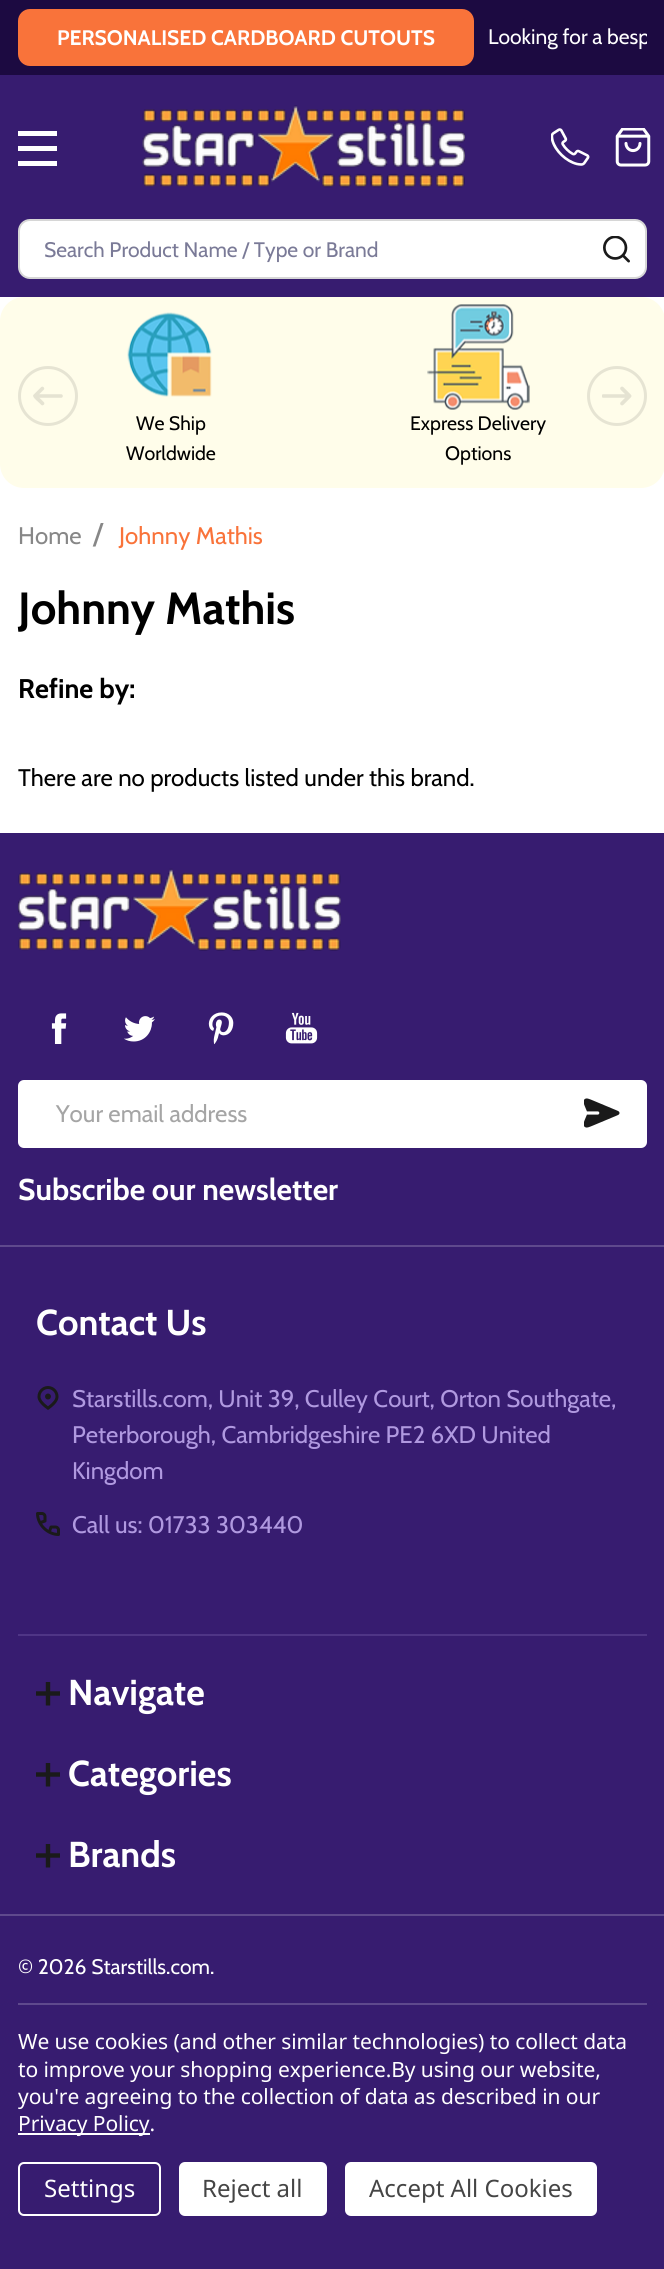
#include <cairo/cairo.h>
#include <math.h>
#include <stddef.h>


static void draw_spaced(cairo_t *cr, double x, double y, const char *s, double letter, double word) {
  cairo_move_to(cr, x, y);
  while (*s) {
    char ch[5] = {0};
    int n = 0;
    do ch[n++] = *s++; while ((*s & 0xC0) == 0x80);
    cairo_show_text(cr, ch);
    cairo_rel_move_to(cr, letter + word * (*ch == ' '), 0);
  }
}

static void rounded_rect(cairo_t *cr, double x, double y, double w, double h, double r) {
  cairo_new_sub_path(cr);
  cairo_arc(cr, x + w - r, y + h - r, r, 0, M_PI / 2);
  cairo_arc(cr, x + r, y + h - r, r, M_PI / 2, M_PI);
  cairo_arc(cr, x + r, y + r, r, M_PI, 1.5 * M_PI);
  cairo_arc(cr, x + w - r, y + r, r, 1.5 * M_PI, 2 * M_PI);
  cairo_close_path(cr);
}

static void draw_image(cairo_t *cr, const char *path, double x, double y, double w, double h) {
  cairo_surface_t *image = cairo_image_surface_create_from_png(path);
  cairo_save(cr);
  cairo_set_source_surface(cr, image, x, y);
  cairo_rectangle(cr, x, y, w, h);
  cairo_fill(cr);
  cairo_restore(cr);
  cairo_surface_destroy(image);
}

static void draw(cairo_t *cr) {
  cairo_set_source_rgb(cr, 1, 1, 1);
  cairo_paint(cr);
  cairo_set_source_rgb(cr, 28 / 255.0, 10 / 255.0, 65 / 255.0);
  cairo_rectangle(cr, 0, 0, 664, 75);
  cairo_fill(cr);
  cairo_set_source_rgb(cr, 249 / 255.0, 115 / 255.0, 58 / 255.0);
  rounded_rect(cr, 19.5, 10.5, 453, 54, 10.5);
  cairo_fill_preserve(cr);
  cairo_set_line_width(cr, 3);
  cairo_stroke(cr);
  cairo_set_source_rgb(cr, 55 / 255.0, 28 / 255.0, 112 / 255.0);
  cairo_rectangle(cr, 0, 75, 664, 222);
  cairo_fill(cr);
  cairo_set_source_rgb(cr, 1, 1, 1);
  cairo_rectangle(cr, 18, 146, 39, 5);
  cairo_fill(cr);
  cairo_rectangle(cr, 18, 131, 39, 5);
  cairo_fill(cr);
  cairo_rectangle(cr, 18, 161, 39, 5);
  cairo_fill(cr);
  draw_image(cr, "images/1.png", 142, 105, 323, 83);
  draw_image(cr, "images/2.png", 551, 128, 39, 38);
  draw_image(cr, "images/3.png", 615, 128, 36, 39);
  rounded_rect(cr, 19, 220, 627, 58, 11);
  cairo_fill_preserve(cr);
  cairo_set_source_rgb(cr, 214 / 255.0, 214 / 255.0, 214 / 255.0);
  cairo_set_line_width(cr, 2);
  cairo_stroke(cr);
  draw_image(cr, "images/4.png", 603, 236, 27, 27);
  cairo_set_source_rgb(cr, 1, 253 / 255.0, 234 / 255.0);
  rounded_rect(cr, 0, 297, 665, 191, 24);
  cairo_fill(cr);
  draw_image(cr, "images/5.png", 33, 386, 30, 20);
  cairo_arc(cr, 48, 396, 28.5, 0, 2 * M_PI);
  cairo_set_source_rgb(cr, 230 / 255.0, 228 / 255.0, 211 / 255.0);
  cairo_set_line_width(cr, 3);
  cairo_stroke(cr);
  draw_image(cr, "images/6.png", 602, 386, 30, 20);
  cairo_arc(cr, 617, 396, 28.5, 0, 2 * M_PI);
  cairo_stroke(cr);
  draw_image(cr, "images/7.png", 127, 312, 85, 85);
  draw_image(cr, "images/8.png", 427, 304, 103, 106);
  cairo_set_source_rgb(cr, 55 / 255.0, 28 / 255.0, 112 / 255.0);
  cairo_rectangle(cr, 0, 833, 664, 1436);
  cairo_fill(cr);
  cairo_set_source_rgb(cr, 95 / 255.0, 73 / 255.0, 141 / 255.0);
  cairo_rectangle(cr, 0, 1245, 664, 2);
  cairo_fill(cr);
  draw_image(cr, "images/9.png", 18, 868, 323, 83);
  draw_image(cr, "images/10.png", 51, 1013, 16, 31);
  draw_image(cr, "images/11.png", 124, 1016, 31, 26);
  draw_image(cr, "images/12.png", 208, 1012, 26, 33);
  draw_image(cr, "images/13.png", 285, 1012, 33, 32);
  cairo_set_source_rgb(cr, 1, 1, 1);
  rounded_rect(cr, 18, 1080, 629, 68, 6);
  cairo_fill(cr);
  draw_image(cr, "images/14.png", 584, 1098, 36, 30);
  cairo_set_source_rgb(cr, 79 / 255.0, 53 / 255.0, 134 / 255.0);
  cairo_rectangle(cr, 18, 1634, 629, 2);
  cairo_fill(cr);
  draw_image(cr, "images/15.png", 37, 1386, 22, 24);
  draw_image(cr, "images/16.png", 36, 1512, 24, 24);
  draw_image(cr, "images/17.png", 36, 1682, 24, 24);
  draw_image(cr, "images/17.png", 36, 1763, 24, 24);
  draw_image(cr, "images/17.png", 36, 1844, 24, 24);
  cairo_set_source_rgb(cr, 95 / 255.0, 73 / 255.0, 141 / 255.0);
  cairo_rectangle(cr, 0, 1914, 664, 2);
  cairo_fill(cr);
  cairo_rectangle(cr, 18, 2003, 629, 2);
  cairo_fill(cr);
  cairo_set_source_rgb(cr, 1, 1, 1);
  cairo_rectangle(cr, 18, 2133, 132, 2);
  cairo_fill(cr);
  rounded_rect(cr, 19, 2163, 141, 52, 5);
  cairo_set_line_width(cr, 2);
  cairo_stroke(cr);
  rounded_rect(cr, 179, 2162, 148, 54, 6);
  cairo_fill(cr);
  rounded_rect(cr, 345, 2162, 252, 54, 6);
  cairo_fill(cr);
  cairo_select_font_face(cr, "Cabin", CAIRO_FONT_SLANT_NORMAL, CAIRO_FONT_WEIGHT_BOLD);
  cairo_set_font_size(cr, 21);
  cairo_move_to(cr, 57, 45);
  cairo_show_text(cr, "PERSONALISED CARDBOARD CUTOUTS");
  cairo_save(cr);
  cairo_rectangle(cr, 18, 9, 629, 57);
  cairo_clip(cr);
  cairo_select_font_face(cr, "Cabin", CAIRO_FONT_SLANT_NORMAL, CAIRO_FONT_WEIGHT_NORMAL);
  cairo_move_to(cr, 488, 44);
  cairo_show_text(cr, "Looking for a besp");
  cairo_restore(cr);
  cairo_select_font_face(cr, "Cabin", CAIRO_FONT_SLANT_NORMAL, CAIRO_FONT_WEIGHT_NORMAL);
  cairo_set_source_rgb(cr, 122 / 255.0, 122 / 255.0, 151 / 255.0);
  cairo_move_to(cr, 44, 257);
  cairo_show_text(cr, "Search Product Name / Type or Brand");
  cairo_set_font_size(cr, 19.5);
  cairo_set_source_rgb(cr, 0, 0, 0);
  cairo_move_to(cr, 136, 430);
  cairo_show_text(cr, "We Ship");
  cairo_move_to(cr, 126, 460);
  cairo_show_text(cr, "Worldwide");
  cairo_move_to(cr, 410, 430);
  cairo_show_text(cr, "Express Delivery");
  cairo_move_to(cr, 445, 460);
  cairo_show_text(cr, "Options");
  cairo_set_font_size(cr, 24);
  cairo_set_source_rgb(cr, 135 / 255.0, 135 / 255.0, 135 / 255.0);
  cairo_move_to(cr, 18, 544);
  cairo_show_text(cr, "Home");
  cairo_set_font_size(cr, 30);
  cairo_move_to(cr, 93, 544);
  cairo_show_text(cr, "/");
  cairo_set_font_size(cr, 24);
  cairo_set_source_rgb(cr, 249 / 255.0, 115 / 255.0, 58 / 255.0);
  cairo_move_to(cr, 119, 544);
  cairo_show_text(cr, "Johnny Mathis");
  cairo_select_font_face(cr, "Cabin", CAIRO_FONT_SLANT_NORMAL, CAIRO_FONT_WEIGHT_BOLD);
  cairo_set_font_size(cr, 45);
  cairo_set_source_rgb(cr, 0, 0, 0);
  cairo_move_to(cr, 18, 624);
  cairo_show_text(cr, "Johnny Mathis");
  cairo_set_font_size(cr, 27);
  cairo_move_to(cr, 18, 698);
  cairo_show_text(cr, "Refine by:");
  cairo_select_font_face(cr, "Cabin", CAIRO_FONT_SLANT_NORMAL, CAIRO_FONT_WEIGHT_NORMAL);
  cairo_set_font_size(cr, 24);
  cairo_move_to(cr, 18, 786);
  cairo_show_text(cr, "There are no products listed under this brand.");
  cairo_set_source_rgb(cr, 165 / 255.0, 165 / 255.0, 165 / 255.0);
  cairo_move_to(cr, 56, 1122);
  cairo_show_text(cr, "Your email address");
  cairo_select_font_face(cr, "Cabin", CAIRO_FONT_SLANT_NORMAL, CAIRO_FONT_WEIGHT_BOLD);
  cairo_set_font_size(cr, 30);
  cairo_set_source_rgb(cr, 1, 1, 1);
  cairo_move_to(cr, 18, 1200);
  cairo_show_text(cr, "Subscribe our newsletter");
  cairo_set_font_size(cr, 36);
  cairo_move_to(cr, 36, 1335);
  cairo_show_text(cr, "Contact Us");
  cairo_select_font_face(cr, "Cabin", CAIRO_FONT_SLANT_NORMAL, CAIRO_FONT_WEIGHT_NORMAL);
  cairo_set_font_size(cr, 24);
  cairo_set_source_rgb(cr, 176 / 255.0, 153 / 255.0, 224 / 255.0);
  cairo_move_to(cr, 72, 1407);
  cairo_show_text(cr, "Starstills.com, Unit 39, Culley Court, Orton Southgate,");
  cairo_move_to(cr, 72, 1443);
  cairo_show_text(cr, "Peterborough, Cambridgeshire PE2 6XD United");
  cairo_move_to(cr, 72, 1479);
  cairo_show_text(cr, "Kingdom");
  cairo_move_to(cr, 72, 1533);
  cairo_show_text(cr, "Call us: 01733 303440");
  cairo_select_font_face(cr, "Cabin", CAIRO_FONT_SLANT_NORMAL, CAIRO_FONT_WEIGHT_BOLD);
  cairo_set_font_size(cr, 36);
  cairo_set_source_rgb(cr, 1, 1, 1);
  cairo_move_to(cr, 68, 1705);
  cairo_show_text(cr, "Navigate");
  cairo_move_to(cr, 68, 1786);
  cairo_show_text(cr, "Categories");
  cairo_move_to(cr, 68, 1867);
  cairo_show_text(cr, "Brands");
  cairo_select_font_face(cr, "Cabin", CAIRO_FONT_SLANT_NORMAL, CAIRO_FONT_WEIGHT_NORMAL);
  cairo_set_font_size(cr, 21);
  cairo_move_to(cr, 18, 1974);
  cairo_show_text(cr, "© 2026 Starstills.com.");
  cairo_select_font_face(cr, "Noto Sans", CAIRO_FONT_SLANT_NORMAL, CAIRO_FONT_WEIGHT_NORMAL);
  draw_spaced(cr, 18, 2049, "We use cookies (and other similar technologies) to collect data", -0.08, 0);
  draw_spaced(cr, 18, 2077, "to improve your shopping experience.By using our website,", -0.08, 0);
  draw_spaced(cr, 18, 2104, "you're agreeing to the collection of data as described in our", -0.08, 0);
  draw_spaced(cr, 18, 2131, "Privacy Policy.", -0.08, 0);
  cairo_set_font_size(cr, 24);
  cairo_move_to(cr, 44, 2197);
  cairo_show_text(cr, "Settings");
  cairo_set_source_rgb(cr, 69 / 255.0, 69 / 255.0, 69 / 255.0);
  cairo_move_to(cr, 202, 2197);
  cairo_show_text(cr, "Reject all");
  cairo_move_to(cr, 369, 2197);
  cairo_show_text(cr, "Accept All Cookies");
}

int main(void) {
  cairo_surface_t *surface = cairo_image_surface_create(CAIRO_FORMAT_RGB24, 664, 2269);
  cairo_t *cr = cairo_create(surface);
  cairo_font_options_t *options = cairo_font_options_create();
  cairo_font_options_set_hint_metrics(options, CAIRO_HINT_METRICS_OFF);
  cairo_font_options_set_hint_style(options, CAIRO_HINT_STYLE_NONE);
  cairo_set_font_options(cr, options);
  cairo_set_miter_limit(cr, 4);
  draw(cr);
  cairo_surface_write_to_png(surface, "out.png");
  cairo_font_options_destroy(options);
  cairo_destroy(cr);
  cairo_surface_destroy(surface);
  return 0;
}
